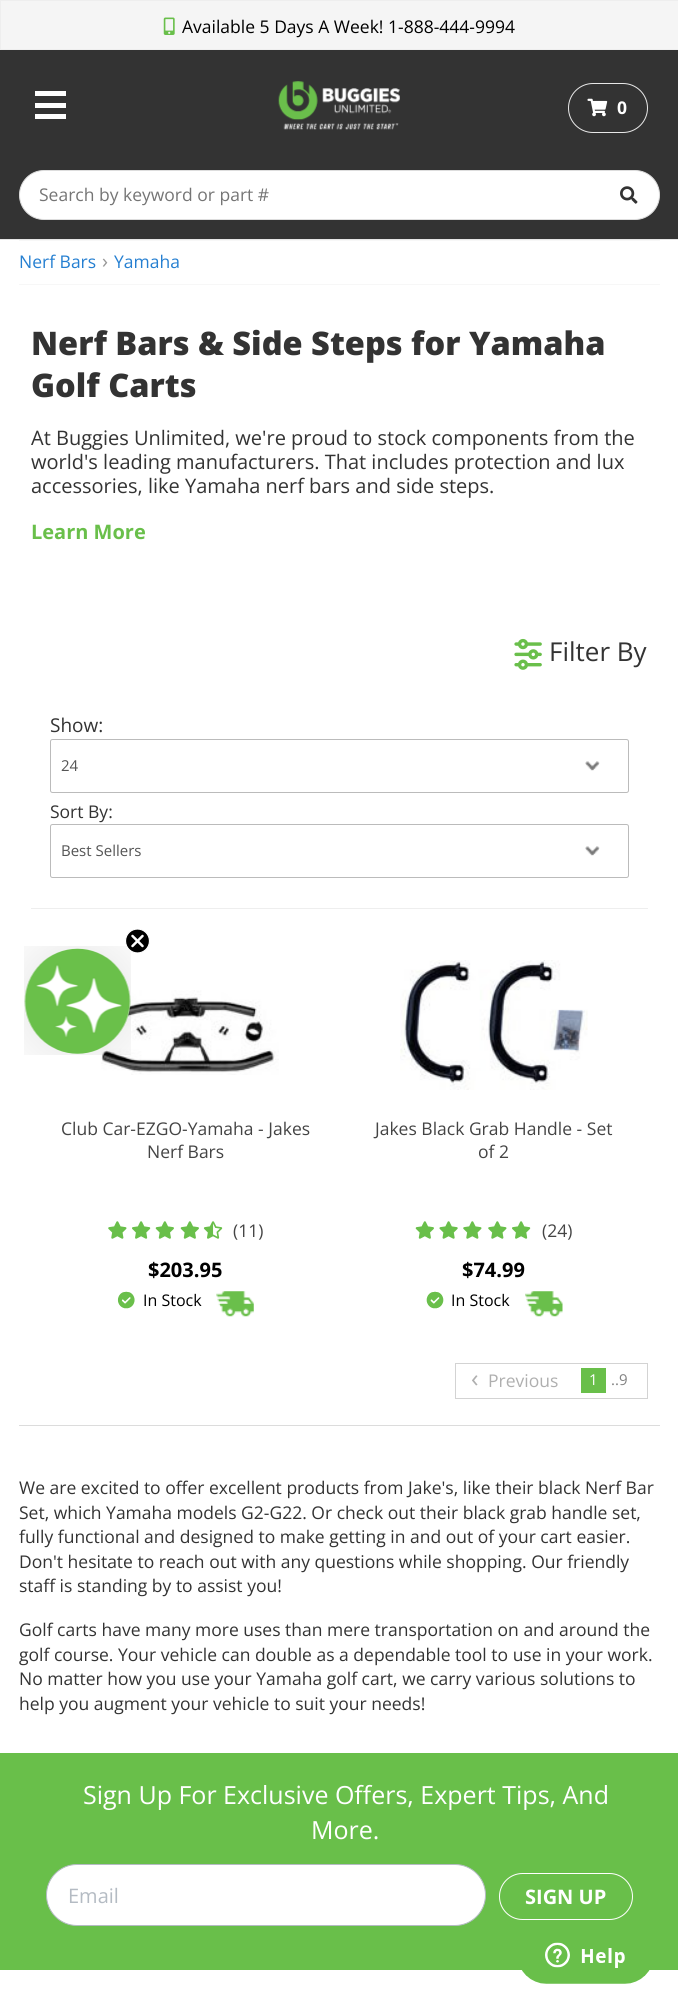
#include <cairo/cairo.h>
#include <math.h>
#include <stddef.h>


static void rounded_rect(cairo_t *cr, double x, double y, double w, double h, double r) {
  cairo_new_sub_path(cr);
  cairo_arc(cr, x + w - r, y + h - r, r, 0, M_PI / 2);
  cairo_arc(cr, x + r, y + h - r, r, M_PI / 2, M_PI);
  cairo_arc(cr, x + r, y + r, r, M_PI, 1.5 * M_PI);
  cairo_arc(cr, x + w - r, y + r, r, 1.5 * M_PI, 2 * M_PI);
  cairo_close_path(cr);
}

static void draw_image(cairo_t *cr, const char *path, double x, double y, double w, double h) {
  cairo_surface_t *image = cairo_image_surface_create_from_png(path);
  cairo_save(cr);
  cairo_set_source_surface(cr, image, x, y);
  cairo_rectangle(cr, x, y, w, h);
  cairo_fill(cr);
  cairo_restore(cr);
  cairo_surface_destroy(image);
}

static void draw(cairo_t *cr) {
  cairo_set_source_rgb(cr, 1, 1, 1);
  cairo_paint(cr);
  cairo_set_source_rgb(cr, 245 / 255.0, 245 / 255.0, 245 / 255.0);
  cairo_rectangle(cr, 0.5, 0.5, 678, 49);
  cairo_fill_preserve(cr);
  cairo_set_source_rgb(cr, 238 / 255.0, 238 / 255.0, 238 / 255.0);
  cairo_set_line_width(cr, 1);
  cairo_stroke(cr);
  draw_image(cr, "images/1.png", 163, 17, 12, 18);
  cairo_set_source_rgb(cr, 51 / 255.0, 51 / 255.0, 51 / 255.0);
  cairo_rectangle(cr, 0, 50, 678, 189);
  cairo_fill(cr);
  cairo_set_source_rgb(cr, 1, 1, 1);
  cairo_rectangle(cr, 35, 91, 31, 5);
  cairo_fill(cr);
  cairo_rectangle(cr, 35, 103, 31, 5);
  cairo_fill(cr);
  cairo_rectangle(cr, 35, 114, 31, 5);
  cairo_fill(cr);
  draw_image(cr, "images/2.png", 278, 81, 122, 49);
  rounded_rect(cr, 568.5, 83.5, 79, 49, 24.5);
  cairo_set_source_rgb(cr, 232 / 255.0, 232 / 255.0, 232 / 255.0);
  cairo_stroke(cr);
  draw_image(cr, "images/3.png", 587, 98, 21, 19);
  cairo_set_source_rgb(cr, 229 / 255.0, 229 / 255.0, 229 / 255.0);
  cairo_rectangle(cr, 0, 239, 678, 1);
  cairo_fill(cr);
  cairo_set_source_rgb(cr, 1, 1, 1);
  rounded_rect(cr, 19.5, 170.5, 640, 49, 24.5);
  cairo_fill_preserve(cr);
  cairo_set_source_rgb(cr, 221 / 255.0, 221 / 255.0, 221 / 255.0);
  cairo_stroke(cr);
  draw_image(cr, "images/4.png", 620, 186, 18, 18);
  cairo_set_source_rgb(cr, 247 / 255.0, 247 / 255.0, 247 / 255.0);
  cairo_rectangle(cr, 19, 240, 641, 1);
  cairo_fill(cr);
  cairo_rectangle(cr, 19, 284, 641, 1);
  cairo_fill(cr);
  draw_image(cr, "images/5.png", 514, 638, 28, 32);
  cairo_set_source_rgb(cr, 238 / 255.0, 238 / 255.0, 238 / 255.0);
  cairo_rectangle(cr, 31, 908, 617, 1);
  cairo_fill(cr);
  draw_image(cr, "images/6.png", 585, 761, 15, 10);
  rounded_rect(cr, 50.5, 739.5, 578, 53, 2);
  cairo_set_source_rgb(cr, 187 / 255.0, 187 / 255.0, 187 / 255.0);
  cairo_stroke(cr);
  draw_image(cr, "images/6.png", 585, 846, 15, 10);
  rounded_rect(cr, 50.5, 824.5, 578, 53, 2);
  cairo_stroke(cr);
  draw_image(cr, "images/7.png", 101, 990, 178, 85);
  draw_image(cr, "images/8.png", 108, 1221, 19, 18);
  draw_image(cr, "images/9.png", 132, 1221, 19, 18);
  draw_image(cr, "images/10.png", 155, 1221, 19, 18);
  draw_image(cr, "images/10.png", 180, 1221, 19, 18);
  draw_image(cr, "images/11.png", 203, 1221, 20, 18);
  draw_image(cr, "images/12.png", 117, 1291, 18, 18);
  draw_image(cr, "images/13.png", 216, 1291, 38, 26);
  draw_image(cr, "images/14.png", 400, 960, 188, 130);
  draw_image(cr, "images/10.png", 415, 1221, 19, 18);
  draw_image(cr, "images/15.png", 439, 1221, 19, 18);
  draw_image(cr, "images/8.png", 463, 1221, 19, 18);
  draw_image(cr, "images/8.png", 488, 1221, 19, 18);
  draw_image(cr, "images/9.png", 512, 1221, 19, 18);
  draw_image(cr, "images/16.png", 426, 1291, 18, 18);
  draw_image(cr, "images/17.png", 525, 1291, 38, 26);
  cairo_rectangle(cr, 455.5, 1363.5, 192, 35);
  cairo_set_source_rgb(cr, 211 / 255.0, 211 / 255.0, 211 / 255.0);
  cairo_stroke(cr);
  cairo_set_source_rgb(cr, 105 / 255.0, 191 / 255.0, 74 / 255.0);
  cairo_rectangle(cr, 581, 1368, 25, 25);
  cairo_fill(cr);
  cairo_set_source_rgb(cr, 220 / 255.0, 220 / 255.0, 220 / 255.0);
  cairo_rectangle(cr, 19, 1425, 641, 1);
  cairo_fill(cr);
  cairo_set_source_rgb(cr, 1, 1, 1);
  cairo_arc(cr, 77.5, 1001.5, 52.5, 0, 2 * M_PI);
  cairo_fill(cr);
  draw_image(cr, "images/18.png", 24, 946, 107, 109);
  cairo_set_source_rgb(cr, 0, 0, 0);
  cairo_arc(cr, 137.5, 941, 12, 0, 2 * M_PI);
  cairo_fill(cr);
  cairo_save(cr);
  cairo_rectangle(cr, 125, 929, 25, 25);
  cairo_clip(cr);
  cairo_arc(cr, 137.5, 941, 12, 0, 2 * M_PI);
  cairo_set_source_rgb(cr, 1, 1, 1);
  cairo_set_line_width(cr, 1.2);
  cairo_stroke(cr);
  cairo_restore(cr);
  cairo_new_path(cr);
  cairo_move_to(cr, 132.5, 936);
  cairo_line_to(cr, 142.5, 946);
  cairo_move_to(cr, 132.5, 946);
  cairo_line_to(cr, 142.5, 936);
  cairo_close_path(cr);
  cairo_set_source_rgb(cr, 1, 1, 1);
  cairo_set_line_width(cr, 2.5);
  cairo_set_line_cap(cr, CAIRO_LINE_CAP_ROUND);
  cairo_set_line_join(cr, CAIRO_LINE_JOIN_ROUND);
  cairo_stroke(cr);
  cairo_set_source_rgb(cr, 105 / 255.0, 191 / 255.0, 74 / 255.0);
  cairo_rectangle(cr, 0, 1753, 678, 217);
  cairo_fill(cr);
  cairo_set_source_rgb(cr, 1, 1, 1);
  rounded_rect(cr, 46.5, 1864.5, 439, 61, 30.5);
  cairo_fill_preserve(cr);
  cairo_set_source_rgb(cr, 180 / 255.0, 187 / 255.0, 195 / 255.0);
  cairo_set_line_width(cr, 1);
  cairo_set_line_cap(cr, CAIRO_LINE_CAP_BUTT);
  cairo_set_line_join(cr, CAIRO_LINE_JOIN_MITER);
  cairo_stroke(cr);
  rounded_rect(cr, 499.5, 1873.5, 133, 46, 23);
  cairo_set_source_rgb(cr, 1, 1, 1);
  cairo_stroke(cr);
  draw_image(cr, "images/19.png", 521, 1942, 129, 42);
  cairo_select_font_face(cr, "Open Sans", CAIRO_FONT_SLANT_NORMAL, CAIRO_FONT_WEIGHT_NORMAL);
  cairo_set_font_size(cr, 17.5);
  cairo_set_source_rgb(cr, 0, 0, 0);
  cairo_move_to(cr, 182, 33);
  cairo_show_text(cr, "Available 5 Days A Week! 1-888-444-9994");
  cairo_select_font_face(cr, "Open Sans", CAIRO_FONT_SLANT_NORMAL, CAIRO_FONT_WEIGHT_BOLD);
  cairo_set_source_rgb(cr, 1, 1, 1);
  cairo_move_to(cr, 617, 114);
  cairo_show_text(cr, "0");
  cairo_select_font_face(cr, "Open Sans", CAIRO_FONT_SLANT_NORMAL, CAIRO_FONT_WEIGHT_NORMAL);
  cairo_set_source_rgb(cr, 117 / 255.0, 117 / 255.0, 117 / 255.0);
  cairo_move_to(cr, 39, 201);
  cairo_show_text(cr, "Search by keyword or part #");
  cairo_set_source_rgb(cr, 37 / 255.0, 127 / 255.0, 209 / 255.0);
  cairo_move_to(cr, 19, 268);
  cairo_show_text(cr, "Nerf Bars");
  cairo_set_font_size(cr, 20);
  cairo_set_source_rgb(cr, 152 / 255.0, 152 / 255.0, 152 / 255.0);
  cairo_move_to(cr, 102, 268);
  cairo_show_text(cr, "›");
  cairo_set_font_size(cr, 17.5);
  cairo_set_source_rgb(cr, 37 / 255.0, 127 / 255.0, 209 / 255.0);
  cairo_move_to(cr, 114, 268);
  cairo_show_text(cr, "Yamaha");
  cairo_select_font_face(cr, "Open Sans ExtraBold", CAIRO_FONT_SLANT_NORMAL, CAIRO_FONT_WEIGHT_NORMAL);
  cairo_set_font_size(cr, 32.5);
  cairo_set_source_rgb(cr, 51 / 255.0, 51 / 255.0, 51 / 255.0);
  cairo_move_to(cr, 31, 355);
  cairo_show_text(cr, "Nerf Bars & Side Steps for Yamaha");
  cairo_move_to(cr, 31, 397);
  cairo_show_text(cr, "Golf Carts");
  cairo_select_font_face(cr, "Open Sans", CAIRO_FONT_SLANT_NORMAL, CAIRO_FONT_WEIGHT_NORMAL);
  cairo_set_font_size(cr, 20);
  cairo_move_to(cr, 31, 445);
  cairo_show_text(cr, "At Buggies Unlimited, we're proud to stock components from the");
  cairo_move_to(cr, 31, 469);
  cairo_show_text(cr, "world's leading manufacturers. That includes protection and lux");
  cairo_move_to(cr, 31, 493);
  cairo_show_text(cr, "accessories, like Yamaha nerf bars and side steps.");
  cairo_select_font_face(cr, "Open Sans", CAIRO_FONT_SLANT_NORMAL, CAIRO_FONT_WEIGHT_BOLD);
  cairo_set_source_rgb(cr, 105 / 255.0, 191 / 255.0, 74 / 255.0);
  cairo_move_to(cr, 31, 539);
  cairo_show_text(cr, "Learn More");
  cairo_select_font_face(cr, "Open Sans", CAIRO_FONT_SLANT_NORMAL, CAIRO_FONT_WEIGHT_NORMAL);
  cairo_set_font_size(cr, 26);
  cairo_set_source_rgb(cr, 51 / 255.0, 51 / 255.0, 51 / 255.0);
  cairo_move_to(cr, 549, 661);
  cairo_show_text(cr, "Filter By");
  cairo_set_font_size(cr, 19);
  cairo_move_to(cr, 50, 732);
  cairo_show_text(cr, "Show:");
  cairo_set_font_size(cr, 15);
  cairo_set_source_rgb(cr, 85 / 255.0, 85 / 255.0, 85 / 255.0);
  cairo_move_to(cr, 61, 771);
  cairo_show_text(cr, "24");
  cairo_set_font_size(cr, 17.5);
  cairo_set_source_rgb(cr, 51 / 255.0, 51 / 255.0, 51 / 255.0);
  cairo_move_to(cr, 50, 818);
  cairo_show_text(cr, "Sort By:");
  cairo_set_font_size(cr, 15);
  cairo_set_source_rgb(cr, 85 / 255.0, 85 / 255.0, 85 / 255.0);
  cairo_move_to(cr, 61, 856);
  cairo_show_text(cr, "Best Sellers");
  cairo_set_font_size(cr, 17.5);
  cairo_set_source_rgb(cr, 68 / 255.0, 68 / 255.0, 68 / 255.0);
  cairo_move_to(cr, 61, 1135);
  cairo_show_text(cr, "Club Car-EZGO-Yamaha - Jakes");
  cairo_move_to(cr, 147, 1158);
  cairo_show_text(cr, "Nerf Bars");
  cairo_move_to(cr, 233, 1237);
  cairo_show_text(cr, "(11)");
  cairo_select_font_face(cr, "Open Sans", CAIRO_FONT_SLANT_NORMAL, CAIRO_FONT_WEIGHT_BOLD);
  cairo_set_font_size(cr, 20);
  cairo_set_source_rgb(cr, 0, 0, 0);
  cairo_move_to(cr, 148, 1277);
  cairo_show_text(cr, "$203.95");
  cairo_select_font_face(cr, "Open Sans", CAIRO_FONT_SLANT_NORMAL, CAIRO_FONT_WEIGHT_NORMAL);
  cairo_set_font_size(cr, 16);
  cairo_move_to(cr, 143, 1306);
  cairo_show_text(cr, "In Stock");
  cairo_set_font_size(cr, 17.5);
  cairo_set_source_rgb(cr, 68 / 255.0, 68 / 255.0, 68 / 255.0);
  cairo_move_to(cr, 375, 1135);
  cairo_show_text(cr, "Jakes Black Grab Handle - Set");
  cairo_move_to(cr, 478, 1158);
  cairo_show_text(cr, "of 2");
  cairo_move_to(cr, 542, 1237);
  cairo_show_text(cr, "(24)");
  cairo_select_font_face(cr, "Open Sans", CAIRO_FONT_SLANT_NORMAL, CAIRO_FONT_WEIGHT_BOLD);
  cairo_set_font_size(cr, 20);
  cairo_set_source_rgb(cr, 0, 0, 0);
  cairo_move_to(cr, 462, 1277);
  cairo_show_text(cr, "$74.99");
  cairo_select_font_face(cr, "Open Sans", CAIRO_FONT_SLANT_NORMAL, CAIRO_FONT_WEIGHT_NORMAL);
  cairo_set_font_size(cr, 16);
  cairo_move_to(cr, 451, 1306);
  cairo_show_text(cr, "In Stock");
  cairo_set_font_size(cr, 25);
  cairo_set_source_rgb(cr, 175 / 255.0, 175 / 255.0, 175 / 255.0);
  cairo_move_to(cr, 471, 1387);
  cairo_show_text(cr, "‹");
  cairo_set_font_size(cr, 17.5);
  cairo_move_to(cr, 488, 1387);
  cairo_show_text(cr, "Previous");
  cairo_set_font_size(cr, 15);
  cairo_set_source_rgb(cr, 1, 1, 1);
  cairo_move_to(cr, 589, 1385);
  cairo_show_text(cr, "1");
  cairo_set_source_rgb(cr, 130 / 255.0, 130 / 255.0, 130 / 255.0);
  cairo_move_to(cr, 611, 1385);
  cairo_show_text(cr, "..9");
  cairo_set_font_size(cr, 17.5);
  cairo_set_source_rgb(cr, 51 / 255.0, 51 / 255.0, 51 / 255.0);
  cairo_move_to(cr, 19, 1494);
  cairo_show_text(cr, "We are excited to offer excellent products from Jake's, like their black Nerf Bar");
  cairo_move_to(cr, 19, 1519);
  cairo_show_text(cr, "Set, which Yamaha models G2-G22. Or check out their black grab handle set,");
  cairo_move_to(cr, 19, 1543);
  cairo_show_text(cr, "fully functional and designed to make getting in and out of your cart easier.");
  cairo_move_to(cr, 19, 1568);
  cairo_show_text(cr, "Don't hesitate to reach out with any questions while shopping. Our friendly");
  cairo_move_to(cr, 19, 1592);
  cairo_show_text(cr, "staff is standing by to assist you!");
  cairo_move_to(cr, 19, 1636);
  cairo_show_text(cr, "Golf carts have many more uses than mere transportation on and around the");
  cairo_move_to(cr, 19, 1661);
  cairo_show_text(cr, "golf course. Your vehicle can double as a dependable tool to use in your work.");
  cairo_move_to(cr, 19, 1685);
  cairo_show_text(cr, "No matter how you use your Yamaha golf cart, we carry various solutions to");
  cairo_move_to(cr, 19, 1710);
  cairo_show_text(cr, "help you augment your vehicle to suit your needs!");
  cairo_set_font_size(cr, 25);
  cairo_set_source_rgb(cr, 1, 1, 1);
  cairo_move_to(cr, 83, 1804);
  cairo_show_text(cr, "Sign Up For Exclusive Offers, Expert Tips, And");
  cairo_move_to(cr, 311, 1839);
  cairo_show_text(cr, "More.");
  cairo_set_font_size(cr, 20);
  cairo_set_source_rgb(cr, 180 / 255.0, 187 / 255.0, 195 / 255.0);
  cairo_move_to(cr, 68, 1903);
  cairo_show_text(cr, "Email");
  cairo_select_font_face(cr, "Open Sans", CAIRO_FONT_SLANT_NORMAL, CAIRO_FONT_WEIGHT_BOLD);
  cairo_set_source_rgb(cr, 1, 1, 1);
  cairo_move_to(cr, 525, 1904);
  cairo_show_text(cr, "SIGN UP");
}

int main(void) {
  cairo_surface_t *surface = cairo_image_surface_create(CAIRO_FORMAT_RGB24, 678, 2001);
  cairo_t *cr = cairo_create(surface);
  cairo_font_options_t *options = cairo_font_options_create();
  cairo_font_options_set_hint_metrics(options, CAIRO_HINT_METRICS_OFF);
  cairo_font_options_set_hint_style(options, CAIRO_HINT_STYLE_NONE);
  cairo_set_font_options(cr, options);
  cairo_set_miter_limit(cr, 4);
  draw(cr);
  cairo_surface_write_to_png(surface, "out.png");
  cairo_font_options_destroy(options);
  cairo_destroy(cr);
  cairo_surface_destroy(surface);
  return 0;
}
